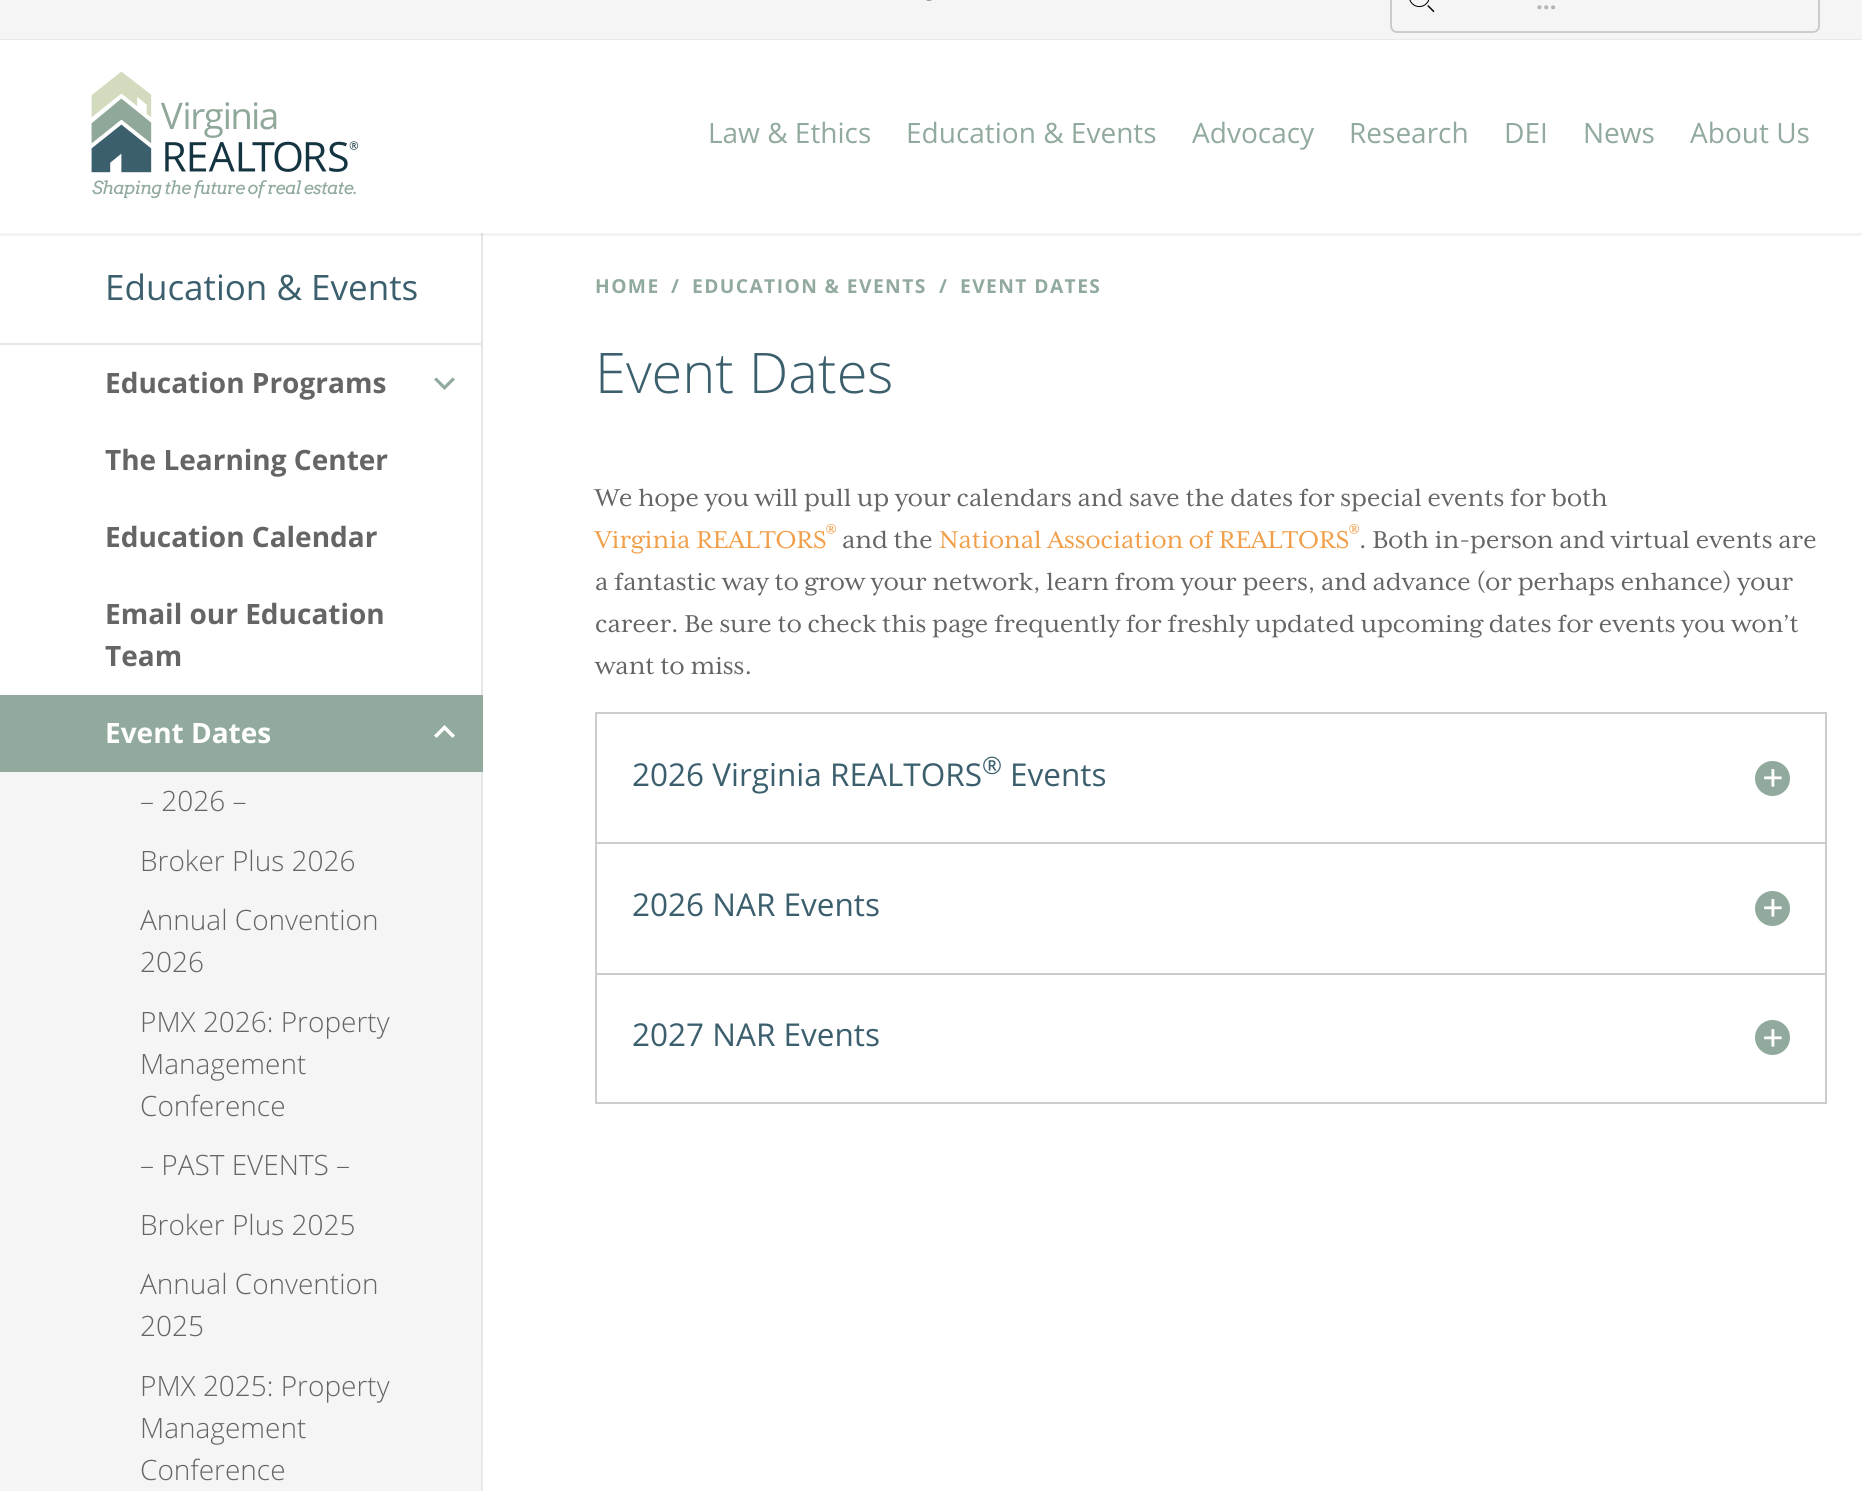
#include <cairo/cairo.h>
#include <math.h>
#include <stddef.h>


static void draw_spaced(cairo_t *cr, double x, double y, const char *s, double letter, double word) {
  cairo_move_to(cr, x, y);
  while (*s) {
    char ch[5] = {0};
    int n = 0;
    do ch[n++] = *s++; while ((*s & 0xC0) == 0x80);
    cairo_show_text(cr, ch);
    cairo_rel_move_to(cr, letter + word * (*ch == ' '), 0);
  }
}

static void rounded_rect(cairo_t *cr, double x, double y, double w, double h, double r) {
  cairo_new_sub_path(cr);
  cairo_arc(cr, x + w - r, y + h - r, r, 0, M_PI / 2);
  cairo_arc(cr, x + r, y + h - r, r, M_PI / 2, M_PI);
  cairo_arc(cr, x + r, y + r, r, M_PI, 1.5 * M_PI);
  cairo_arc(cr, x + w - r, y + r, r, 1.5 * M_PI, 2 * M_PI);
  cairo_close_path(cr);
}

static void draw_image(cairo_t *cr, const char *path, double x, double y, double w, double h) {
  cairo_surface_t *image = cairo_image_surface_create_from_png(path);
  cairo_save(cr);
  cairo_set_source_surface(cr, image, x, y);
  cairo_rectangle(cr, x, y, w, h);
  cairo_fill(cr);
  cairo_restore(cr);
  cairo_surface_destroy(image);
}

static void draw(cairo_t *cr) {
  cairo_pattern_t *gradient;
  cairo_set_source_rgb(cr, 1, 1, 1);
  cairo_paint(cr);
  cairo_set_source_rgb(cr, 245 / 255.0, 245 / 255.0, 245 / 255.0);
  cairo_rectangle(cr, 0, 0, 1862, 39);
  cairo_fill(cr);
  draw_image(cr, "images/1.png", 926, 0, 6, 1);
  rounded_rect(cr, 1391, -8, 428, 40, 6);
  cairo_set_source_rgb(cr, 204 / 255.0, 204 / 255.0, 204 / 255.0);
  cairo_stroke(cr);
  draw_image(cr, "images/2.png", 1409, 0, 26, 12);
  cairo_set_source_rgb(cr, 230 / 255.0, 230 / 255.0, 230 / 255.0);
  cairo_rectangle(cr, 0, 343, 483, 2);
  cairo_fill(cr);
  cairo_set_source_rgb(cr, 245 / 255.0, 245 / 255.0, 245 / 255.0);
  cairo_rectangle(cr, 0, 772, 483, 719);
  cairo_fill(cr);
  gradient = cairo_pattern_create_linear(482, 233, 482, 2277);
  cairo_pattern_add_color_stop_rgba(gradient, 0, 230 / 255.0, 230 / 255.0, 230 / 255.0, 1);
  cairo_pattern_add_color_stop_rgba(gradient, 0.5, 230 / 255.0, 230 / 255.0, 230 / 255.0, 1);
  cairo_pattern_add_color_stop_rgba(gradient, 1, 230 / 255.0, 230 / 255.0, 230 / 255.0, 0);
  cairo_set_source(cr, gradient);
  cairo_pattern_destroy(gradient);
  cairo_rectangle(cr, 481, 233, 2, 1258);
  cairo_fill(cr);
  cairo_set_source_rgba(cr, 0, 0, 0, 0.05);
  cairo_rectangle(cr, 0, 233, 1862, 3);
  cairo_fill(cr);
  cairo_set_source_rgb(cr, 233 / 255.0, 233 / 255.0, 233 / 255.0);
  cairo_rectangle(cr, 0, 39, 1862, 1);
  cairo_fill(cr);
  draw_image(cr, "images/3.png", 91, 71, 268, 102);
  cairo_set_source_rgb(cr, 145 / 255.0, 170 / 255.0, 157 / 255.0);
  cairo_new_path(cr);
  cairo_move_to(cr, 452.5, 377.5);
  cairo_line_to(cr, 455, 379.5);
  cairo_line_to(cr, 444.5, 390);
  cairo_line_to(cr, 434, 379.5);
  cairo_line_to(cr, 436.5, 377.5);
  cairo_line_to(cr, 444.5, 385.5);
  cairo_close_path(cr);
  cairo_fill(cr);
  cairo_rectangle(cr, 0, 695, 483, 77);
  cairo_fill(cr);
  cairo_set_source_rgb(cr, 1, 1, 1);
  cairo_new_path(cr);
  cairo_move_to(cr, 436.5, 738);
  cairo_line_to(cr, 434, 735.5);
  cairo_line_to(cr, 444.5, 725);
  cairo_line_to(cr, 455, 735.5);
  cairo_line_to(cr, 452.5, 738);
  cairo_line_to(cr, 444.5, 730);
  cairo_close_path(cr);
  cairo_fill(cr);
  cairo_rectangle(cr, 596, 713, 1230, 130);
  cairo_set_source_rgb(cr, 204 / 255.0, 204 / 255.0, 204 / 255.0);
  cairo_stroke(cr);
  cairo_set_source_rgb(cr, 145 / 255.0, 170 / 255.0, 157 / 255.0);
  cairo_arc(cr, 1772.5, 778.5, 17.5, 0, 2 * M_PI);
  cairo_fill(cr);
  cairo_rectangle(cr, 596, 843, 1230, 131);
  cairo_set_source_rgb(cr, 204 / 255.0, 204 / 255.0, 204 / 255.0);
  cairo_stroke(cr);
  cairo_set_source_rgb(cr, 145 / 255.0, 170 / 255.0, 157 / 255.0);
  cairo_arc(cr, 1772.5, 908.5, 17.5, 0, 2 * M_PI);
  cairo_fill(cr);
  cairo_rectangle(cr, 596, 974, 1230, 129);
  cairo_set_source_rgb(cr, 204 / 255.0, 204 / 255.0, 204 / 255.0);
  cairo_stroke(cr);
  cairo_set_source_rgb(cr, 145 / 255.0, 170 / 255.0, 157 / 255.0);
  cairo_arc(cr, 1772.5, 1037.5, 17.5, 0, 2 * M_PI);
  cairo_fill(cr);
  cairo_select_font_face(cr, "Open Sans", CAIRO_FONT_SLANT_NORMAL, CAIRO_FONT_WEIGHT_BOLD);
  cairo_set_font_size(cr, 24);
  cairo_set_source_rgb(cr, 179 / 255.0, 179 / 255.0, 179 / 255.0);
  cairo_move_to(cr, 1536, 9);
  cairo_show_text(cr, "…");
  cairo_select_font_face(cr, "Open Sans", CAIRO_FONT_SLANT_NORMAL, CAIRO_FONT_WEIGHT_NORMAL);
  cairo_set_font_size(cr, 28);
  cairo_set_source_rgb(cr, 145 / 255.0, 170 / 255.0, 157 / 255.0);
  cairo_move_to(cr, 708, 143);
  cairo_show_text(cr, "Law & Ethics");
  cairo_move_to(cr, 906, 143);
  cairo_show_text(cr, "Education & Events");
  cairo_move_to(cr, 1192, 143);
  cairo_show_text(cr, "Advocacy");
  cairo_move_to(cr, 1349, 143);
  cairo_show_text(cr, "Research");
  cairo_move_to(cr, 1504, 143);
  cairo_show_text(cr, "DEI");
  cairo_move_to(cr, 1583, 143);
  cairo_show_text(cr, "News");
  cairo_move_to(cr, 1690, 143);
  cairo_show_text(cr, "About Us");
  cairo_select_font_face(cr, "Arvo", CAIRO_FONT_SLANT_ITALIC, CAIRO_FONT_WEIGHT_NORMAL);
  cairo_set_font_size(cr, 18);
  draw_spaced(cr, 92, 194, "Shaping the future of real estate.", -0.9, 0);
  cairo_select_font_face(cr, "Open Sans", CAIRO_FONT_SLANT_NORMAL, CAIRO_FONT_WEIGHT_NORMAL);
  cairo_set_font_size(cr, 35);
  cairo_set_source_rgb(cr, 60 / 255.0, 95 / 255.0, 110 / 255.0);
  cairo_move_to(cr, 105, 300);
  cairo_show_text(cr, "Education & Events");
  cairo_select_font_face(cr, "Open Sans", CAIRO_FONT_SLANT_NORMAL, CAIRO_FONT_WEIGHT_BOLD);
  cairo_set_font_size(cr, 28);
  cairo_set_source_rgb(cr, 101 / 255.0, 101 / 255.0, 101 / 255.0);
  cairo_move_to(cr, 105, 393);
  cairo_show_text(cr, "Education Programs");
  cairo_move_to(cr, 105, 470);
  cairo_show_text(cr, "The Learning Center");
  cairo_move_to(cr, 105, 547);
  cairo_show_text(cr, "Education Calendar");
  cairo_move_to(cr, 105, 624);
  cairo_show_text(cr, "Email our Education");
  cairo_move_to(cr, 105, 666);
  cairo_show_text(cr, "Team");
  cairo_set_source_rgb(cr, 1, 1, 1);
  cairo_move_to(cr, 105, 743);
  cairo_show_text(cr, "Event Dates");
  cairo_select_font_face(cr, "Open Sans Light", CAIRO_FONT_SLANT_NORMAL, CAIRO_FONT_WEIGHT_NORMAL);
  cairo_set_source_rgb(cr, 101 / 255.0, 101 / 255.0, 101 / 255.0);
  cairo_move_to(cr, 140, 811);
  cairo_show_text(cr, "– 2026 –");
  cairo_move_to(cr, 140, 871);
  cairo_show_text(cr, "Broker Plus 2026");
  cairo_move_to(cr, 140, 930);
  cairo_show_text(cr, "Annual Convention");
  cairo_move_to(cr, 140, 972);
  cairo_show_text(cr, "2026");
  cairo_move_to(cr, 140, 1032);
  cairo_show_text(cr, "PMX 2026: Property");
  cairo_move_to(cr, 140, 1074);
  cairo_show_text(cr, "Management");
  cairo_move_to(cr, 140, 1116);
  cairo_show_text(cr, "Conference");
  cairo_move_to(cr, 140, 1175);
  cairo_show_text(cr, "– PAST EVENTS –");
  cairo_move_to(cr, 140, 1235);
  cairo_show_text(cr, "Broker Plus 2025");
  cairo_move_to(cr, 140, 1294);
  cairo_show_text(cr, "Annual Convention");
  cairo_move_to(cr, 140, 1336);
  cairo_show_text(cr, "2025");
  cairo_move_to(cr, 140, 1396);
  cairo_show_text(cr, "PMX 2025: Property");
  cairo_move_to(cr, 140, 1438);
  cairo_show_text(cr, "Management");
  cairo_move_to(cr, 140, 1480);
  cairo_show_text(cr, "Conference");
  cairo_select_font_face(cr, "Open Sans", CAIRO_FONT_SLANT_NORMAL, CAIRO_FONT_WEIGHT_BOLD);
  cairo_set_font_size(cr, 19.25);
  cairo_set_source_rgb(cr, 145 / 255.0, 170 / 255.0, 157 / 255.0);
  draw_spaced(cr, 595, 293, "HOME", 1.4, 0);
  draw_spaced(cr, 671, 293, "/", 1.4, 0);
  draw_spaced(cr, 692, 293, "EDUCATION & EVENTS", 1.4, 0);
  draw_spaced(cr, 939, 293, "/", 1.4, 0);
  draw_spaced(cr, 960, 293, "EVENT DATES", 1.4, 0);
  cairo_select_font_face(cr, "Open Sans Light", CAIRO_FONT_SLANT_NORMAL, CAIRO_FONT_WEIGHT_NORMAL);
  cairo_set_font_size(cr, 56);
  cairo_set_source_rgb(cr, 60 / 255.0, 95 / 255.0, 110 / 255.0);
  cairo_move_to(cr, 595, 393);
  cairo_show_text(cr, "Event Dates");
  cairo_select_font_face(cr, "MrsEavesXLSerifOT", CAIRO_FONT_SLANT_NORMAL, CAIRO_FONT_WEIGHT_NORMAL);
  cairo_set_font_size(cr, 28);
  cairo_set_source_rgb(cr, 101 / 255.0, 101 / 255.0, 101 / 255.0);
  cairo_move_to(cr, 595, 506);
  cairo_show_text(cr, "We hope you will pull up your calendars and save the dates for special events for both");
  cairo_set_font_size(cr, 21);
  cairo_set_source_rgb(cr, 241 / 255.0, 159 / 255.0, 74 / 255.0);
  cairo_move_to(cr, 826, 537);
  cairo_show_text(cr, "®");
  cairo_set_font_size(cr, 28);
  cairo_move_to(cr, 595, 548);
  cairo_show_text(cr, "Virginia REALTORS");
  cairo_set_source_rgb(cr, 101 / 255.0, 101 / 255.0, 101 / 255.0);
  cairo_move_to(cr, 842, 548);
  cairo_show_text(cr, "and the");
  cairo_set_font_size(cr, 21);
  cairo_set_source_rgb(cr, 241 / 255.0, 159 / 255.0, 74 / 255.0);
  cairo_move_to(cr, 1349, 537);
  cairo_show_text(cr, "®");
  cairo_set_font_size(cr, 28);
  cairo_move_to(cr, 939, 548);
  cairo_show_text(cr, "National Association of REALTORS");
  cairo_set_source_rgb(cr, 101 / 255.0, 101 / 255.0, 101 / 255.0);
  cairo_move_to(cr, 1359, 548);
  cairo_show_text(cr, ". Both in-person and virtual events are");
  cairo_move_to(cr, 595, 590);
  cairo_show_text(cr, "a fantastic way to grow your network, learn from your peers, and advance (or perhaps enhance) your");
  cairo_move_to(cr, 595, 632);
  cairo_show_text(cr, "career. Be sure to check this page frequently for freshly updated upcoming dates for events you won’t");
  cairo_move_to(cr, 595, 674);
  cairo_show_text(cr, "want to miss.");
  cairo_select_font_face(cr, "Open Sans", CAIRO_FONT_SLANT_NORMAL, CAIRO_FONT_WEIGHT_NORMAL);
  cairo_set_font_size(cr, 31.5);
  cairo_set_source_rgb(cr, 60 / 255.0, 95 / 255.0, 110 / 255.0);
  cairo_move_to(cr, 632, 786);
  cairo_show_text(cr, "2026 Virginia REALTORS");
  cairo_set_font_size(cr, 24);
  cairo_move_to(cr, 982, 774);
  cairo_show_text(cr, "®");
  cairo_set_font_size(cr, 31.5);
  cairo_move_to(cr, 1010, 786);
  cairo_show_text(cr, "Events");
  cairo_select_font_face(cr, "MrsEavesXLSerifOT", CAIRO_FONT_SLANT_NORMAL, CAIRO_FONT_WEIGHT_BOLD);
  cairo_set_font_size(cr, 49);
  cairo_set_source_rgb(cr, 1, 1, 1);
  cairo_move_to(cr, 1762, 792);
  cairo_show_text(cr, "+");
  cairo_select_font_face(cr, "Open Sans", CAIRO_FONT_SLANT_NORMAL, CAIRO_FONT_WEIGHT_NORMAL);
  cairo_set_font_size(cr, 31.5);
  cairo_set_source_rgb(cr, 60 / 255.0, 95 / 255.0, 110 / 255.0);
  cairo_move_to(cr, 632, 916);
  cairo_show_text(cr, "2026 NAR Events");
  cairo_select_font_face(cr, "MrsEavesXLSerifOT", CAIRO_FONT_SLANT_NORMAL, CAIRO_FONT_WEIGHT_BOLD);
  cairo_set_font_size(cr, 49);
  cairo_set_source_rgb(cr, 1, 1, 1);
  cairo_move_to(cr, 1762, 922);
  cairo_show_text(cr, "+");
  cairo_select_font_face(cr, "Open Sans", CAIRO_FONT_SLANT_NORMAL, CAIRO_FONT_WEIGHT_NORMAL);
  cairo_set_font_size(cr, 31.5);
  cairo_set_source_rgb(cr, 60 / 255.0, 95 / 255.0, 110 / 255.0);
  cairo_move_to(cr, 632, 1046);
  cairo_show_text(cr, "2027 NAR Events");
  cairo_select_font_face(cr, "MrsEavesXLSerifOT", CAIRO_FONT_SLANT_NORMAL, CAIRO_FONT_WEIGHT_BOLD);
  cairo_set_font_size(cr, 49);
  cairo_set_source_rgb(cr, 1, 1, 1);
  cairo_move_to(cr, 1762, 1052);
  cairo_show_text(cr, "+");
}

int main(void) {
  cairo_surface_t *surface = cairo_image_surface_create(CAIRO_FORMAT_RGB24, 1862, 1491);
  cairo_t *cr = cairo_create(surface);
  cairo_font_options_t *options = cairo_font_options_create();
  cairo_font_options_set_hint_metrics(options, CAIRO_HINT_METRICS_OFF);
  cairo_font_options_set_hint_style(options, CAIRO_HINT_STYLE_NONE);
  cairo_set_font_options(cr, options);
  cairo_set_miter_limit(cr, 4);
  draw(cr);
  cairo_surface_write_to_png(surface, "out.png");
  cairo_font_options_destroy(options);
  cairo_destroy(cr);
  cairo_surface_destroy(surface);
  return 0;
}
